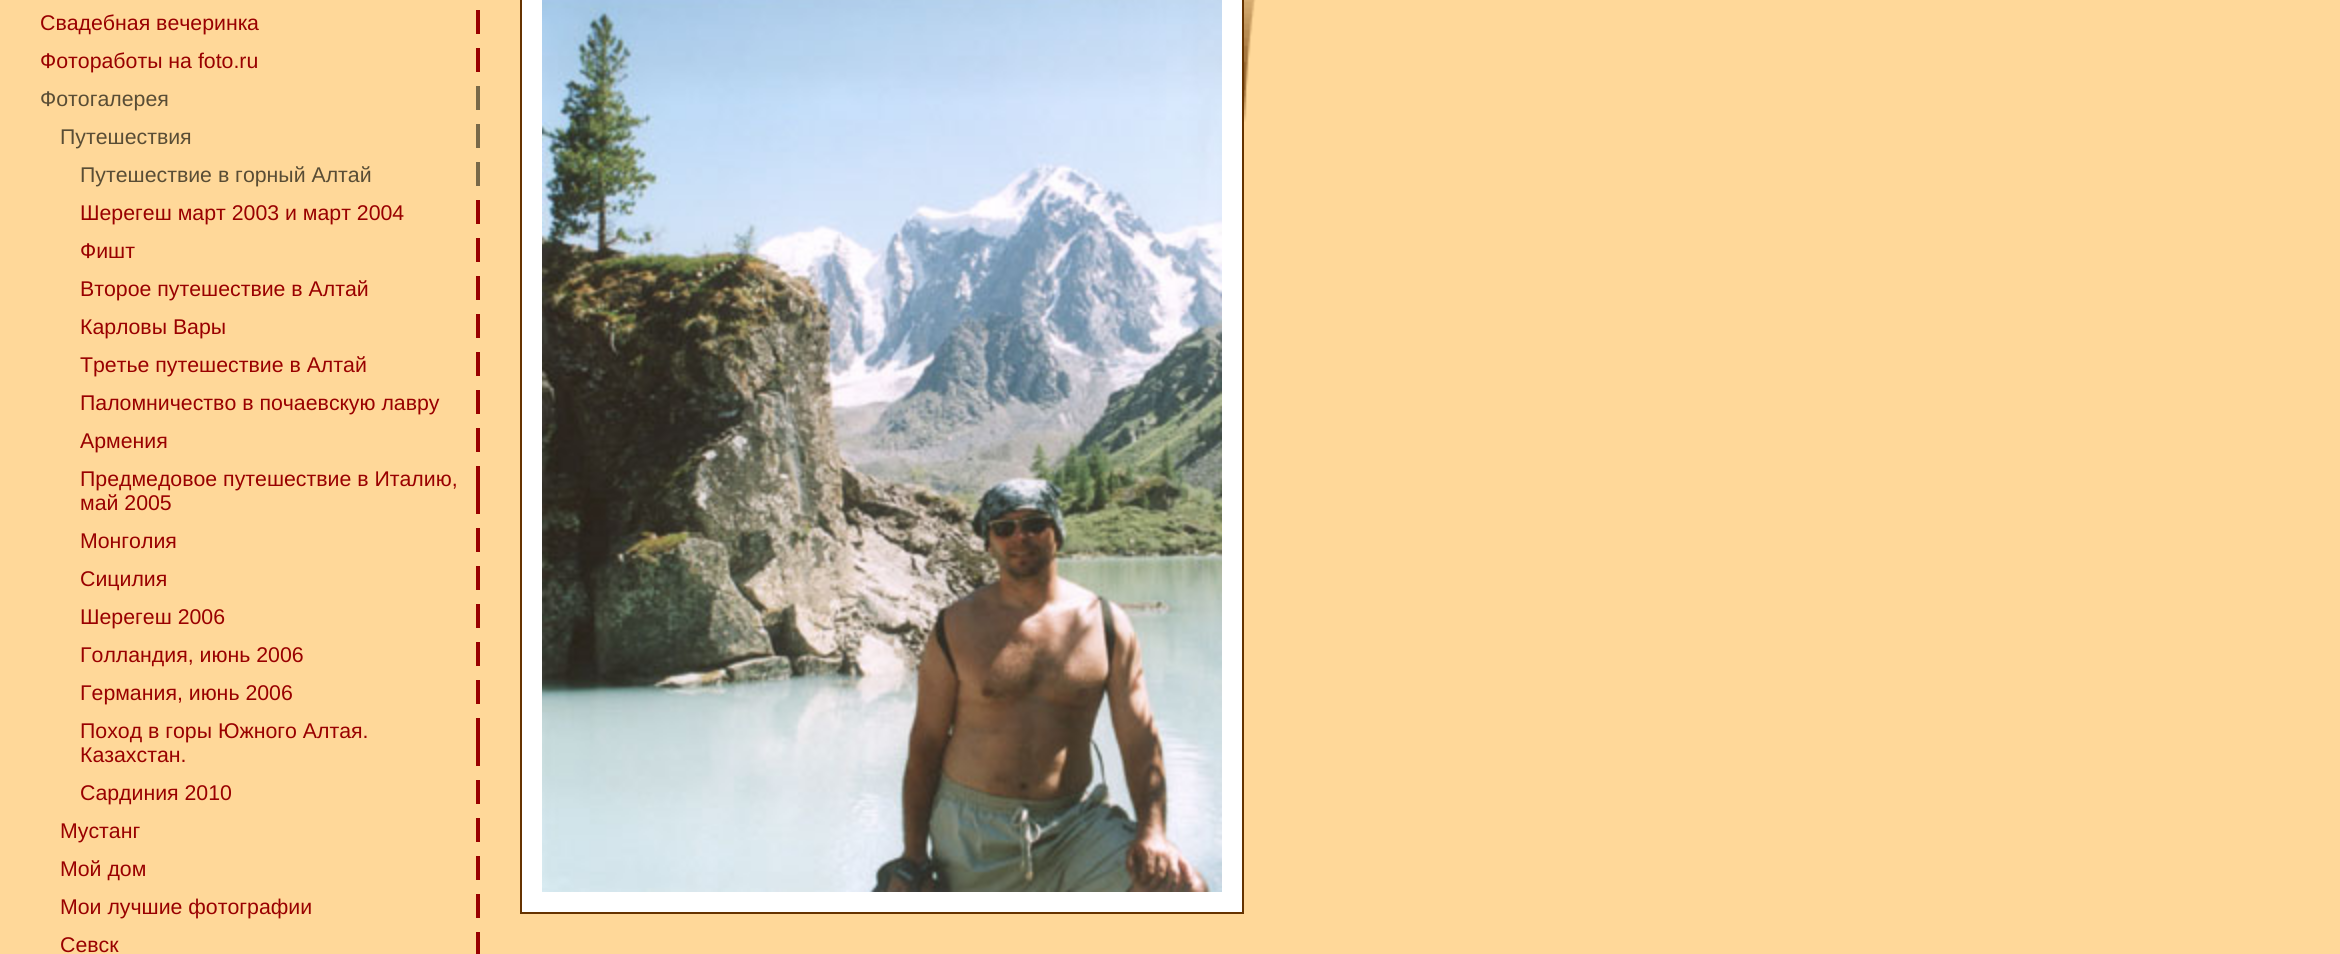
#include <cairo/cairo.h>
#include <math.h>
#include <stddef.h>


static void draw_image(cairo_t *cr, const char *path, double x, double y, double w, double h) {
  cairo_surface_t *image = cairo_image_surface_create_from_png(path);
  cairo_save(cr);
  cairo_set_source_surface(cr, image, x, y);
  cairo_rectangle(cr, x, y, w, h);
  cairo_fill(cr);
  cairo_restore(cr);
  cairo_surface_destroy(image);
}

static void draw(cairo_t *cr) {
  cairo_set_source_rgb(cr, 1, 216 / 255.0, 153 / 255.0);
  cairo_paint(cr);
  cairo_set_source_rgb(cr, 153 / 255.0, 0, 0);
  cairo_rectangle(cr, 476, 10, 4, 24);
  cairo_fill(cr);
  cairo_rectangle(cr, 476, 48, 4, 24);
  cairo_fill(cr);
  cairo_set_source_rgb(cr, 121 / 255.0, 105 / 255.0, 72 / 255.0);
  cairo_rectangle(cr, 476, 86, 4, 24);
  cairo_fill(cr);
  cairo_rectangle(cr, 476, 124, 4, 24);
  cairo_fill(cr);
  cairo_rectangle(cr, 476, 162, 4, 24);
  cairo_fill(cr);
  cairo_set_source_rgb(cr, 153 / 255.0, 0, 0);
  cairo_rectangle(cr, 476, 200, 4, 24);
  cairo_fill(cr);
  cairo_rectangle(cr, 476, 238, 4, 24);
  cairo_fill(cr);
  cairo_rectangle(cr, 476, 276, 4, 24);
  cairo_fill(cr);
  cairo_rectangle(cr, 476, 314, 4, 24);
  cairo_fill(cr);
  cairo_rectangle(cr, 476, 352, 4, 24);
  cairo_fill(cr);
  cairo_rectangle(cr, 476, 390, 4, 24);
  cairo_fill(cr);
  cairo_rectangle(cr, 476, 428, 4, 24);
  cairo_fill(cr);
  cairo_rectangle(cr, 476, 466, 4, 48);
  cairo_fill(cr);
  cairo_rectangle(cr, 476, 528, 4, 24);
  cairo_fill(cr);
  cairo_rectangle(cr, 476, 566, 4, 24);
  cairo_fill(cr);
  cairo_rectangle(cr, 476, 604, 4, 24);
  cairo_fill(cr);
  cairo_rectangle(cr, 476, 642, 4, 24);
  cairo_fill(cr);
  cairo_rectangle(cr, 476, 680, 4, 24);
  cairo_fill(cr);
  cairo_rectangle(cr, 476, 718, 4, 48);
  cairo_fill(cr);
  cairo_rectangle(cr, 476, 780, 4, 24);
  cairo_fill(cr);
  cairo_rectangle(cr, 476, 818, 4, 24);
  cairo_fill(cr);
  cairo_rectangle(cr, 476, 856, 4, 24);
  cairo_fill(cr);
  cairo_rectangle(cr, 476, 894, 4, 24);
  cairo_fill(cr);
  cairo_rectangle(cr, 476, 932, 4, 22);
  cairo_fill(cr);
  cairo_set_source_rgb(cr, 102 / 255.0, 51 / 255.0, 0);
  cairo_rectangle(cr, 520, 0, 724, 914);
  cairo_fill(cr);
  cairo_set_source_rgb(cr, 1, 1, 1);
  cairo_rectangle(cr, 522, 0, 720, 912);
  cairo_fill(cr);
  draw_image(cr, "images/1.png", 542, 0, 680, 892);
  draw_image(cr, "images/2.png", 1244, 0, 12, 122);
  cairo_select_font_face(cr, "Liberation Sans", CAIRO_FONT_SLANT_NORMAL, CAIRO_FONT_WEIGHT_NORMAL);
  cairo_set_font_size(cr, 21.3);
  cairo_set_source_rgb(cr, 153 / 255.0, 0, 0);
  cairo_move_to(cr, 40, 30);
  cairo_show_text(cr, "Свадебная вечеринка");
  cairo_move_to(cr, 40, 68);
  cairo_show_text(cr, "Фотоработы на foto.ru");
  cairo_set_source_rgb(cr, 89 / 255.0, 77 / 255.0, 53 / 255.0);
  cairo_move_to(cr, 40, 106);
  cairo_show_text(cr, "Фотогалерея");
  cairo_move_to(cr, 60, 144);
  cairo_show_text(cr, "Путешествия");
  cairo_move_to(cr, 80, 182);
  cairo_show_text(cr, "Путешествие в горный Алтай");
  cairo_set_source_rgb(cr, 153 / 255.0, 0, 0);
  cairo_move_to(cr, 80, 220);
  cairo_show_text(cr, "Шерегеш март 2003 и март 2004");
  cairo_move_to(cr, 80, 258);
  cairo_show_text(cr, "Фишт");
  cairo_move_to(cr, 80, 296);
  cairo_show_text(cr, "Второе путешествие в Алтай");
  cairo_move_to(cr, 80, 334);
  cairo_show_text(cr, "Карловы Вары");
  cairo_move_to(cr, 80, 372);
  cairo_show_text(cr, "Третье путешествие в Алтай");
  cairo_move_to(cr, 80, 410);
  cairo_show_text(cr, "Паломничество в почаевскую лавру");
  cairo_move_to(cr, 80, 448);
  cairo_show_text(cr, "Армения");
  cairo_move_to(cr, 80, 486);
  cairo_show_text(cr, "Предмедовое путешествие в Италию,");
  cairo_move_to(cr, 80, 510);
  cairo_show_text(cr, "май 2005");
  cairo_move_to(cr, 80, 548);
  cairo_show_text(cr, "Монголия");
  cairo_move_to(cr, 80, 586);
  cairo_show_text(cr, "Сицилия");
  cairo_move_to(cr, 80, 624);
  cairo_show_text(cr, "Шерегеш 2006");
  cairo_move_to(cr, 80, 662);
  cairo_show_text(cr, "Голландия, июнь 2006");
  cairo_move_to(cr, 80, 700);
  cairo_show_text(cr, "Германия, июнь 2006");
  cairo_move_to(cr, 80, 738);
  cairo_show_text(cr, "Поход в горы Южного Алтая.");
  cairo_move_to(cr, 80, 762);
  cairo_show_text(cr, "Казахстан.");
  cairo_move_to(cr, 80, 800);
  cairo_show_text(cr, "Сардиния 2010");
  cairo_move_to(cr, 60, 838);
  cairo_show_text(cr, "Мустанг");
  cairo_move_to(cr, 60, 876);
  cairo_show_text(cr, "Мой дом");
  cairo_move_to(cr, 60, 914);
  cairo_show_text(cr, "Мои лучшие фотографии");
  cairo_move_to(cr, 60, 952);
  cairo_show_text(cr, "Севск");
}

int main(void) {
  cairo_surface_t *surface = cairo_image_surface_create(CAIRO_FORMAT_RGB24, 2340, 954);
  cairo_t *cr = cairo_create(surface);
  cairo_font_options_t *options = cairo_font_options_create();
  cairo_font_options_set_hint_metrics(options, CAIRO_HINT_METRICS_OFF);
  cairo_font_options_set_hint_style(options, CAIRO_HINT_STYLE_NONE);
  cairo_set_font_options(cr, options);
  cairo_set_miter_limit(cr, 4);
  draw(cr);
  cairo_surface_write_to_png(surface, "out.png");
  cairo_font_options_destroy(options);
  cairo_destroy(cr);
  cairo_surface_destroy(surface);
  return 0;
}
